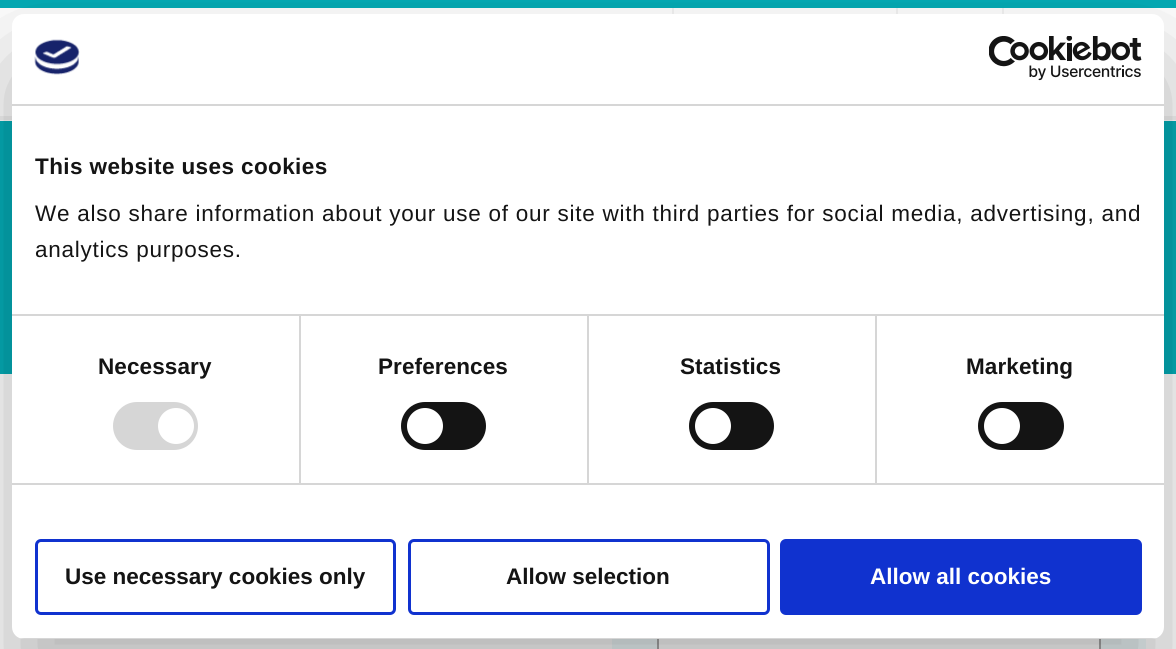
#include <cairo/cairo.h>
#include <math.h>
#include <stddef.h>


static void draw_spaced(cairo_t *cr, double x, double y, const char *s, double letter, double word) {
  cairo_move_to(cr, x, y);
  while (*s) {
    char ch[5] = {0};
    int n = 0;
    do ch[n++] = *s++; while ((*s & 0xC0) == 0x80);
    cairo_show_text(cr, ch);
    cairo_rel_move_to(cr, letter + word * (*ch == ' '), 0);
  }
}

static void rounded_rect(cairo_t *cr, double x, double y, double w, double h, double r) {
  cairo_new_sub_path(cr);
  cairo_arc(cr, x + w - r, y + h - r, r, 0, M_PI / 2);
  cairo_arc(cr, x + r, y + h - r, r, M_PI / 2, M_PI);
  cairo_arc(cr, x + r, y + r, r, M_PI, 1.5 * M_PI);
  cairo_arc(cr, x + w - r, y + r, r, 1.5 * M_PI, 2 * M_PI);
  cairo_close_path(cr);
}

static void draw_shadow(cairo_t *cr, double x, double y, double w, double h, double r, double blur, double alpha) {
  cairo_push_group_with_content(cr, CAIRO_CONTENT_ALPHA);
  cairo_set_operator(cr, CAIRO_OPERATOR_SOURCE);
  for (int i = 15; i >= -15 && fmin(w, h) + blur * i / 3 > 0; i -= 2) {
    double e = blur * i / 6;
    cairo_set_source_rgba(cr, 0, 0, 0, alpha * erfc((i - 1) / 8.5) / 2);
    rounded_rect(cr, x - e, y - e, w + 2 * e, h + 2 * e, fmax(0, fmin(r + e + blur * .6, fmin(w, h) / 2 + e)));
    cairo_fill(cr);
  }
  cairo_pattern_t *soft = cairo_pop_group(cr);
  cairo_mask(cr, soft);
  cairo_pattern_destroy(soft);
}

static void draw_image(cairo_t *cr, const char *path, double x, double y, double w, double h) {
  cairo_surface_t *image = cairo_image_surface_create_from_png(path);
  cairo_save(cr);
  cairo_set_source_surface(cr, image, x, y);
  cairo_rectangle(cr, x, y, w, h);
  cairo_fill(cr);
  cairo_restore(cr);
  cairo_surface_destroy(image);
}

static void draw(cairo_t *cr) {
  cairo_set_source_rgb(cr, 1, 1, 1);
  cairo_paint(cr);
  cairo_set_source_rgb(cr, 4 / 255.0, 172 / 255.0, 182 / 255.0);
  cairo_rectangle(cr, 0, 0, 1176, 8);
  cairo_fill(cr);
  cairo_set_source_rgb(cr, 242 / 255.0, 242 / 255.0, 242 / 255.0);
  cairo_rectangle(cr, 896, 8, 2, 6);
  cairo_fill(cr);
  cairo_rectangle(cr, 672, 8, 2, 6);
  cairo_fill(cr);
  cairo_rectangle(cr, 1002, 8, 2, 6);
  cairo_fill(cr);
  cairo_rectangle(cr, 0, 116, 1176, 4);
  cairo_fill(cr);
  cairo_set_source_rgb(cr, 4 / 255.0, 172 / 255.0, 182 / 255.0);
  cairo_rectangle(cr, 0, 121, 1176, 253);
  cairo_fill(cr);
  cairo_set_source_rgb(cr, 240 / 255.0, 250 / 255.0, 251 / 255.0);
  cairo_rectangle(cr, 612, 639, 534, 10);
  cairo_fill(cr);
  cairo_set_source_rgb(cr, 1, 1, 1);
  cairo_rectangle(cr, 659, 639, 440, 10);
  cairo_fill(cr);
  cairo_rectangle(cr, 658, 576, 442, 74);
  cairo_set_source_rgb(cr, 170 / 255.0, 170 / 255.0, 170 / 255.0);
  cairo_stroke(cr);
  cairo_set_source_rgb(cr, 0, 0, 0);
  draw_shadow(cr, 12, 62, 1152, 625, 12, 51, 0.3);
  cairo_set_source_rgb(cr, 1, 1, 1);
  rounded_rect(cr, 12, 14, 1152, 625, 12);
  cairo_fill(cr);
  cairo_set_source_rgb(cr, 214 / 255.0, 214 / 255.0, 214 / 255.0);
  cairo_rectangle(cr, 12, 104, 1152, 2);
  cairo_fill(cr);
  draw_image(cr, "images/1.png", 34, 39, 46, 36);
  draw_image(cr, "images/2.png", 989, 36, 153, 45);
  cairo_rectangle(cr, 299, 315, 2, 168);
  cairo_fill(cr);
  cairo_rectangle(cr, 587, 315, 2, 168);
  cairo_fill(cr);
  cairo_rectangle(cr, 875, 315, 2, 168);
  cairo_fill(cr);
  cairo_rectangle(cr, 12, 314, 1152, 2);
  cairo_fill(cr);
  cairo_rectangle(cr, 12, 483, 1152, 2);
  cairo_fill(cr);
  rounded_rect(cr, 113, 402, 85, 48, 24);
  cairo_fill(cr);
  cairo_set_source_rgb(cr, 1, 1, 1);
  cairo_arc(cr, 176, 426, 18, 0, 2 * M_PI);
  cairo_fill(cr);
  cairo_set_source_rgb(cr, 20 / 255.0, 20 / 255.0, 20 / 255.0);
  rounded_rect(cr, 401, 402, 85, 48, 24);
  cairo_fill(cr);
  cairo_set_source_rgb(cr, 1, 1, 1);
  cairo_arc(cr, 425, 426, 18, 0, 2 * M_PI);
  cairo_fill(cr);
  cairo_set_source_rgb(cr, 20 / 255.0, 20 / 255.0, 20 / 255.0);
  rounded_rect(cr, 689, 402, 85, 48, 24);
  cairo_fill(cr);
  cairo_set_source_rgb(cr, 1, 1, 1);
  cairo_arc(cr, 713, 426, 18, 0, 2 * M_PI);
  cairo_fill(cr);
  cairo_set_source_rgb(cr, 20 / 255.0, 20 / 255.0, 20 / 255.0);
  rounded_rect(cr, 978, 402, 86, 48, 24);
  cairo_fill(cr);
  cairo_set_source_rgb(cr, 1, 1, 1);
  cairo_arc(cr, 1002, 426, 18, 0, 2 * M_PI);
  cairo_fill(cr);
  cairo_save(cr);
  rounded_rect(cr, 12, 14, 1152, 625, 12);
  cairo_clip(cr);
  cairo_set_source_rgb(cr, 214 / 255.0, 214 / 255.0, 214 / 255.0);
  cairo_rectangle(cr, 12, 638, 1152, 1);
  cairo_fill(cr);
  cairo_restore(cr);
  rounded_rect(cr, 36.5, 540.5, 358, 73, 4.5);
  cairo_set_source_rgb(cr, 16 / 255.0, 50 / 255.0, 207 / 255.0);
  cairo_set_line_width(cr, 3);
  cairo_stroke(cr);
  rounded_rect(cr, 409.5, 540.5, 359, 73, 4.5);
  cairo_stroke(cr);
  rounded_rect(cr, 781.5, 540.5, 359, 73, 4.5);
  cairo_fill_preserve(cr);
  cairo_stroke(cr);
  cairo_select_font_face(cr, "Liberation Sans", CAIRO_FONT_SLANT_NORMAL, CAIRO_FONT_WEIGHT_BOLD);
  cairo_set_font_size(cr, 22.5);
  cairo_set_source_rgb(cr, 20 / 255.0, 20 / 255.0, 20 / 255.0);
  draw_spaced(cr, 35, 174, "This website uses cookies", 0.4, 0);
  cairo_select_font_face(cr, "Liberation Sans", CAIRO_FONT_SLANT_NORMAL, CAIRO_FONT_WEIGHT_NORMAL);
  draw_spaced(cr, 35, 221, "We also share information about your use of our site with third parties for social media, advertising, and", 0.75, 0);
  draw_spaced(cr, 35, 257, "analytics purposes.", 0.75, 0);
  cairo_select_font_face(cr, "Liberation Sans", CAIRO_FONT_SLANT_NORMAL, CAIRO_FONT_WEIGHT_BOLD);
  draw_spaced(cr, 98, 374, "Necessary", 0.1, 0);
  draw_spaced(cr, 378, 374, "Preferences", 0.1, 0);
  draw_spaced(cr, 680, 374, "Statistics", 0.1, 0);
  draw_spaced(cr, 966, 374, "Marketing", 0.1, 0);
  cairo_move_to(cr, 65, 584);
  cairo_show_text(cr, "Use necessary cookies only");
  cairo_move_to(cr, 506, 584);
  cairo_show_text(cr, "Allow selection");
  cairo_set_source_rgb(cr, 1, 1, 1);
  cairo_move_to(cr, 870, 584);
  cairo_show_text(cr, "Allow all cookies");
}

int main(void) {
  cairo_surface_t *surface = cairo_image_surface_create(CAIRO_FORMAT_RGB24, 1176, 649);
  cairo_t *cr = cairo_create(surface);
  cairo_font_options_t *options = cairo_font_options_create();
  cairo_font_options_set_hint_metrics(options, CAIRO_HINT_METRICS_OFF);
  cairo_font_options_set_hint_style(options, CAIRO_HINT_STYLE_NONE);
  cairo_set_font_options(cr, options);
  cairo_set_miter_limit(cr, 4);
  draw(cr);
  cairo_surface_write_to_png(surface, "out.png");
  cairo_font_options_destroy(options);
  cairo_destroy(cr);
  cairo_surface_destroy(surface);
  return 0;
}
